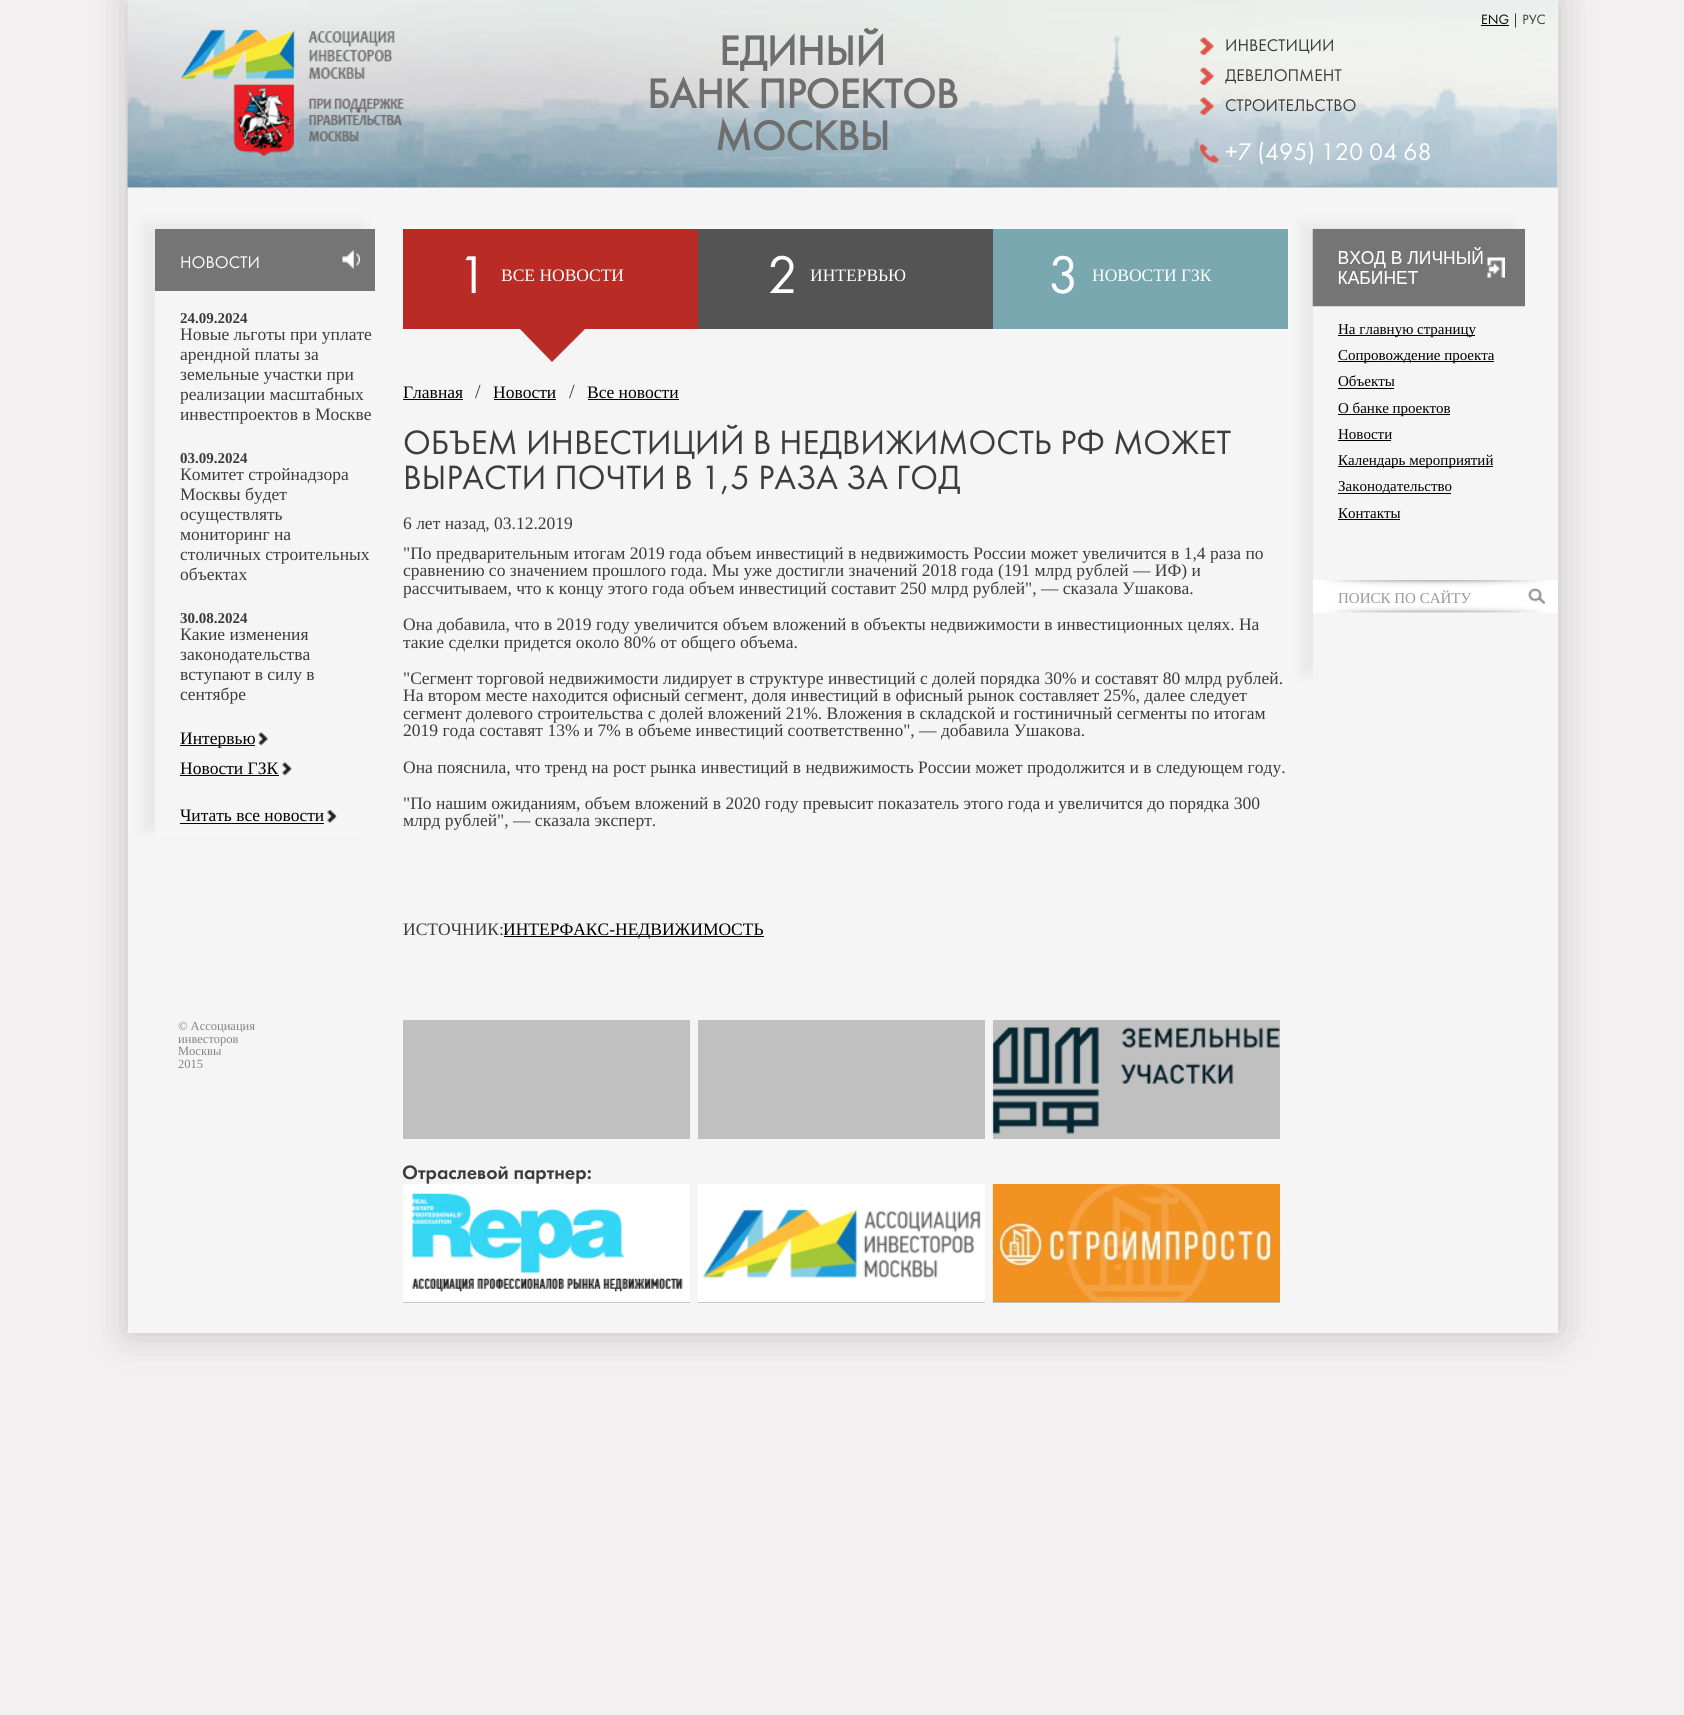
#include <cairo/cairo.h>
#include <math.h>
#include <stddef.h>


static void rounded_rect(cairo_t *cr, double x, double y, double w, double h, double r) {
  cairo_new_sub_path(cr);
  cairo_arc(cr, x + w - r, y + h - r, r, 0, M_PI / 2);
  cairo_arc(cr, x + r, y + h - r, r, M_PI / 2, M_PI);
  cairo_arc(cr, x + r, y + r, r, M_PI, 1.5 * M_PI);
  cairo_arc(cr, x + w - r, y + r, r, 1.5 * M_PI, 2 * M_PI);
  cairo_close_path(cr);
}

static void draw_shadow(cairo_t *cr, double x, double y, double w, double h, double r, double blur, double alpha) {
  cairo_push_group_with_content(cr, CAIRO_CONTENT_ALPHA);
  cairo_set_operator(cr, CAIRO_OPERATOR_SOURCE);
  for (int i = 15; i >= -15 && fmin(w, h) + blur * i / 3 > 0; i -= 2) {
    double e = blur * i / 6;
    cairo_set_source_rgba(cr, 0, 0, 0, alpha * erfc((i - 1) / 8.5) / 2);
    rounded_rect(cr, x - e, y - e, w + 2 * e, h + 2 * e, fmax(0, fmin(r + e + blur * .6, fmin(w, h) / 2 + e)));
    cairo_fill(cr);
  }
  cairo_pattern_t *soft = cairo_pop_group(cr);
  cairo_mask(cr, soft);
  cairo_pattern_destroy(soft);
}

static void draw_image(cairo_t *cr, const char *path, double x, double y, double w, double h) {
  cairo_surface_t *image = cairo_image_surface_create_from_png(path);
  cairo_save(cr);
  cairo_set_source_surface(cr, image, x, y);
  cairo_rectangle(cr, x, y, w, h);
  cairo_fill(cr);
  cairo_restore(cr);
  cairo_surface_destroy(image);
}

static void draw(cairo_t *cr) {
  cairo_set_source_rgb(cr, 242 / 255.0, 240 / 255.0, 241 / 255.0);
  cairo_paint(cr);
  cairo_set_source_rgb(cr, 0, 0, 0);
  draw_shadow(cr, 128, 0, 1430, 1333, 0, 19, 0.2);
  cairo_set_source_rgb(cr, 245 / 255.0, 245 / 255.0, 245 / 255.0);
  cairo_rectangle(cr, 128, 0, 1430, 1333);
  cairo_fill(cr);
  draw_image(cr, "images/1.png", 127, 0, 1431, 188);
  cairo_set_source_rgb(cr, 0, 0, 0);
  cairo_rectangle(cr, 1481, 25, 28, 1);
  cairo_fill(cr);
  draw_image(cr, "images/2.png", 180, 29, 224, 128);
  draw_image(cr, "images/3.png", 1200, 37, 14, 18);
  draw_image(cr, "images/4.png", 1200, 67, 14, 18);
  draw_image(cr, "images/5.png", 1200, 97, 14, 18);
  draw_image(cr, "images/6.png", 1200, 143, 19, 20);
  cairo_save(cr);
  cairo_set_fill_rule(cr, CAIRO_FILL_RULE_EVEN_ODD);
  cairo_new_path(cr);
  cairo_move_to(cr, 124, 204);
  cairo_line_to(cr, 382, 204);
  cairo_line_to(cr, 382, 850);
  cairo_line_to(cr, 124, 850);
  cairo_close_path(cr);
  cairo_move_to(cr, 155, 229);
  cairo_line_to(cr, 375, 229);
  cairo_line_to(cr, 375, 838);
  cairo_line_to(cr, 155, 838);
  cairo_close_path(cr);
  cairo_clip(cr);
  cairo_set_source_rgb(cr, 0, 0, 0);
  draw_shadow(cr, 143, 223, 220, 608, 0, 6, 0.05);
  cairo_restore(cr);
  cairo_set_source_rgb(cr, 117 / 255.0, 117 / 255.0, 117 / 255.0);
  cairo_rectangle(cr, 155, 229, 220, 62);
  cairo_fill(cr);
  draw_image(cr, "images/7.png", 342, 250, 18, 19);
  draw_image(cr, "images/8.png", 258, 732, 10, 14);
  cairo_set_source_rgb(cr, 0, 0, 0);
  cairo_rectangle(cr, 180, 745, 75, 1);
  cairo_fill(cr);
  draw_image(cr, "images/9.png", 282, 762, 10, 14);
  cairo_rectangle(cr, 180, 775, 99, 1);
  cairo_fill(cr);
  draw_image(cr, "images/10.png", 327, 810, 10, 13);
  cairo_rectangle(cr, 180, 823, 144, 1);
  cairo_fill(cr);
  cairo_set_source_rgb(cr, 185 / 255.0, 43 / 255.0, 36 / 255.0);
  cairo_rectangle(cr, 403, 229, 295, 100);
  cairo_fill(cr);
  cairo_new_path(cr);
  cairo_move_to(cr, 517, 326);
  cairo_line_to(cr, 552, 291);
  cairo_line_to(cr, 588, 326);
  cairo_line_to(cr, 552, 362);
  cairo_close_path(cr);
  cairo_fill(cr);
  cairo_set_source_rgb(cr, 84 / 255.0, 84 / 255.0, 84 / 255.0);
  cairo_rectangle(cr, 698, 229, 295, 100);
  cairo_fill(cr);
  cairo_set_source_rgb(cr, 121 / 255.0, 168 / 255.0, 176 / 255.0);
  cairo_rectangle(cr, 993, 229, 295, 100);
  cairo_fill(cr);
  cairo_set_source_rgb(cr, 0, 0, 0);
  cairo_rectangle(cr, 403, 399, 60, 1);
  cairo_fill(cr);
  cairo_rectangle(cr, 494, 399, 62, 1);
  cairo_fill(cr);
  cairo_rectangle(cr, 588, 399, 91, 1);
  cairo_fill(cr);
  cairo_rectangle(cr, 504, 936, 260, 1);
  cairo_fill(cr);
  cairo_save(cr);
  cairo_set_fill_rule(cr, CAIRO_FILL_RULE_EVEN_ODD);
  cairo_new_path(cr);
  cairo_move_to(cr, 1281, 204);
  cairo_line_to(cr, 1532, 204);
  cairo_line_to(cr, 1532, 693);
  cairo_line_to(cr, 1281, 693);
  cairo_close_path(cr);
  cairo_move_to(cr, 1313, 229);
  cairo_line_to(cr, 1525, 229);
  cairo_line_to(cr, 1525, 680);
  cairo_line_to(cr, 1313, 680);
  cairo_close_path(cr);
  cairo_clip(cr);
  cairo_set_source_rgb(cr, 0, 0, 0);
  draw_shadow(cr, 1300, 223, 213, 451, 0, 6, 0.05);
  cairo_restore(cr);
  draw_image(cr, "images/11.png", 1312, 228, 213, 79);
  cairo_rectangle(cr, 1338, 335, 137, 1);
  cairo_fill(cr);
  cairo_rectangle(cr, 1338, 361, 156, 1);
  cairo_fill(cr);
  cairo_rectangle(cr, 1338, 388, 56, 1);
  cairo_fill(cr);
  cairo_rectangle(cr, 1338, 414, 112, 1);
  cairo_fill(cr);
  cairo_rectangle(cr, 1338, 440, 53, 1);
  cairo_fill(cr);
  cairo_rectangle(cr, 1338, 466, 155, 1);
  cairo_fill(cr);
  cairo_rectangle(cr, 1338, 493, 113, 1);
  cairo_fill(cr);
  cairo_rectangle(cr, 1338, 519, 62, 1);
  cairo_fill(cr);
  cairo_set_source_rgb(cr, 1, 1, 1);
  cairo_rectangle(cr, 1313, 580, 245, 33);
  cairo_fill(cr);
  draw_image(cr, "images/12.png", 1325, 580, 221, 33);
  draw_image(cr, "images/13.png", 1528, 588, 17, 16);
  cairo_set_source_rgb(cr, 192 / 255.0, 192 / 255.0, 192 / 255.0);
  cairo_rectangle(cr, 403, 1020, 287, 119);
  cairo_fill(cr);
  cairo_rectangle(cr, 698, 1020, 287, 119);
  cairo_fill(cr);
  cairo_rectangle(cr, 993, 1020, 287, 119);
  cairo_fill(cr);
  draw_image(cr, "images/14.png", 992, 1027, 288, 107);
  cairo_rectangle(cr, 403, 1302, 287, 1);
  cairo_fill(cr);
  draw_image(cr, "images/15.png", 403, 1184, 287, 119);
  cairo_rectangle(cr, 698, 1302, 287, 1);
  cairo_fill(cr);
  draw_image(cr, "images/16.png", 698, 1184, 287, 119);
  cairo_rectangle(cr, 993, 1302, 287, 1);
  cairo_fill(cr);
  draw_image(cr, "images/17.png", 992, 1184, 288, 119);
  cairo_select_font_face(cr, "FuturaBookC", CAIRO_FONT_SLANT_NORMAL, CAIRO_FONT_WEIGHT_NORMAL);
  cairo_set_font_size(cr, 14);
  cairo_set_source_rgb(cr, 0, 0, 0);
  cairo_move_to(cr, 1481, 24);
  cairo_show_text(cr, "ENG");
  cairo_set_source_rgb(cr, 60 / 255.0, 60 / 255.0, 60 / 255.0);
  cairo_move_to(cr, 1512, 24);
  cairo_show_text(cr, "| РУС");
  cairo_select_font_face(cr, "FuturaBookC", CAIRO_FONT_SLANT_NORMAL, CAIRO_FONT_WEIGHT_BOLD);
  cairo_set_font_size(cr, 42.5);
  cairo_set_source_rgb(cr, 110 / 255.0, 110 / 255.0, 110 / 255.0);
  cairo_move_to(cr, 719, 65);
  cairo_show_text(cr, "ЕДИНЫЙ");
  cairo_move_to(cr, 647, 108);
  cairo_show_text(cr, "БАНК ПРОЕКТОВ");
  cairo_move_to(cr, 715, 150);
  cairo_show_text(cr, "МОСКВЫ");
  cairo_select_font_face(cr, "FuturaBookC", CAIRO_FONT_SLANT_NORMAL, CAIRO_FONT_WEIGHT_NORMAL);
  cairo_set_font_size(cr, 17.5);
  cairo_set_source_rgb(cr, 60 / 255.0, 60 / 255.0, 60 / 255.0);
  cairo_move_to(cr, 1225, 51);
  cairo_show_text(cr, "ИНВЕСТИЦИИ");
  cairo_move_to(cr, 1225, 81);
  cairo_show_text(cr, "ДЕВЕЛОПМЕНТ");
  cairo_move_to(cr, 1225, 111);
  cairo_show_text(cr, "СТРОИТЕЛЬСТВО");
  cairo_set_font_size(cr, 25);
  cairo_set_source_rgb(cr, 1, 1, 1);
  cairo_move_to(cr, 1225, 160);
  cairo_show_text(cr, "+7 (495) 120 04 68");
  cairo_set_font_size(cr, 17.5);
  cairo_move_to(cr, 180, 268);
  cairo_show_text(cr, "НОВОСТИ");
  cairo_select_font_face(cr, "Liberation Serif", CAIRO_FONT_SLANT_NORMAL, CAIRO_FONT_WEIGHT_BOLD);
  cairo_set_font_size(cr, 15);
  cairo_set_source_rgb(cr, 60 / 255.0, 60 / 255.0, 60 / 255.0);
  cairo_move_to(cr, 180, 323);
  cairo_show_text(cr, "24.09.2024");
  cairo_select_font_face(cr, "Liberation Serif", CAIRO_FONT_SLANT_NORMAL, CAIRO_FONT_WEIGHT_NORMAL);
  cairo_set_font_size(cr, 17.5);
  cairo_move_to(cr, 180, 340);
  cairo_show_text(cr, "Новые льготы при уплате");
  cairo_move_to(cr, 180, 360);
  cairo_show_text(cr, "арендной платы за");
  cairo_move_to(cr, 180, 380);
  cairo_show_text(cr, "земельные участки при");
  cairo_move_to(cr, 180, 400);
  cairo_show_text(cr, "реализации масштабных");
  cairo_move_to(cr, 180, 420);
  cairo_show_text(cr, "инвестпроектов в Москве");
  cairo_select_font_face(cr, "Liberation Serif", CAIRO_FONT_SLANT_NORMAL, CAIRO_FONT_WEIGHT_BOLD);
  cairo_set_font_size(cr, 15);
  cairo_move_to(cr, 180, 463);
  cairo_show_text(cr, "03.09.2024");
  cairo_select_font_face(cr, "Liberation Serif", CAIRO_FONT_SLANT_NORMAL, CAIRO_FONT_WEIGHT_NORMAL);
  cairo_set_font_size(cr, 17.5);
  cairo_move_to(cr, 180, 480);
  cairo_show_text(cr, "Комитет стройнадзора");
  cairo_move_to(cr, 180, 500);
  cairo_show_text(cr, "Москвы будет");
  cairo_move_to(cr, 180, 520);
  cairo_show_text(cr, "осуществлять");
  cairo_move_to(cr, 180, 540);
  cairo_show_text(cr, "мониторинг на");
  cairo_move_to(cr, 180, 560);
  cairo_show_text(cr, "столичных строительных");
  cairo_move_to(cr, 180, 580);
  cairo_show_text(cr, "объектах");
  cairo_select_font_face(cr, "Liberation Serif", CAIRO_FONT_SLANT_NORMAL, CAIRO_FONT_WEIGHT_BOLD);
  cairo_set_font_size(cr, 15);
  cairo_move_to(cr, 180, 623);
  cairo_show_text(cr, "30.08.2024");
  cairo_select_font_face(cr, "Liberation Serif", CAIRO_FONT_SLANT_NORMAL, CAIRO_FONT_WEIGHT_NORMAL);
  cairo_set_font_size(cr, 17.5);
  cairo_move_to(cr, 180, 640);
  cairo_show_text(cr, "Какие изменения");
  cairo_move_to(cr, 180, 660);
  cairo_show_text(cr, "законодательства");
  cairo_move_to(cr, 180, 680);
  cairo_show_text(cr, "вступают в силу в");
  cairo_move_to(cr, 180, 700);
  cairo_show_text(cr, "сентябре");
  cairo_set_source_rgb(cr, 0, 0, 0);
  cairo_move_to(cr, 180, 744);
  cairo_show_text(cr, "Интервью");
  cairo_move_to(cr, 180, 774);
  cairo_show_text(cr, "Новости ГЗК");
  cairo_move_to(cr, 180, 821);
  cairo_show_text(cr, "Читать все новости");
  cairo_select_font_face(cr, "FuturaBookC", CAIRO_FONT_SLANT_NORMAL, CAIRO_FONT_WEIGHT_NORMAL);
  cairo_set_font_size(cr, 55);
  cairo_set_source_rgb(cr, 1, 1, 1);
  cairo_move_to(cr, 457, 293);
  cairo_show_text(cr, "1");
  cairo_select_font_face(cr, "Liberation Serif", CAIRO_FONT_SLANT_NORMAL, CAIRO_FONT_WEIGHT_NORMAL);
  cairo_set_font_size(cr, 17.5);
  cairo_move_to(cr, 501, 281);
  cairo_show_text(cr, "ВСЕ НОВОСТИ");
  cairo_select_font_face(cr, "FuturaBookC", CAIRO_FONT_SLANT_NORMAL, CAIRO_FONT_WEIGHT_NORMAL);
  cairo_set_font_size(cr, 55);
  cairo_move_to(cr, 767, 293);
  cairo_show_text(cr, "2");
  cairo_select_font_face(cr, "Liberation Serif", CAIRO_FONT_SLANT_NORMAL, CAIRO_FONT_WEIGHT_NORMAL);
  cairo_set_font_size(cr, 17.5);
  cairo_move_to(cr, 810, 281);
  cairo_show_text(cr, "ИНТЕРВЬЮ");
  cairo_select_font_face(cr, "FuturaBookC", CAIRO_FONT_SLANT_NORMAL, CAIRO_FONT_WEIGHT_NORMAL);
  cairo_set_font_size(cr, 55);
  cairo_move_to(cr, 1048, 293);
  cairo_show_text(cr, "3");
  cairo_select_font_face(cr, "Liberation Serif", CAIRO_FONT_SLANT_NORMAL, CAIRO_FONT_WEIGHT_NORMAL);
  cairo_set_font_size(cr, 17.5);
  cairo_move_to(cr, 1092, 281);
  cairo_show_text(cr, "НОВОСТИ ГЗК");
  cairo_set_source_rgb(cr, 0, 0, 0);
  cairo_move_to(cr, 403, 398);
  cairo_show_text(cr, "Главная");
  cairo_set_font_size(cr, 20);
  cairo_set_source_rgb(cr, 60 / 255.0, 60 / 255.0, 60 / 255.0);
  cairo_move_to(cr, 475, 398);
  cairo_show_text(cr, "/");
  cairo_set_font_size(cr, 17.5);
  cairo_set_source_rgb(cr, 0, 0, 0);
  cairo_move_to(cr, 493, 398);
  cairo_show_text(cr, "Новости");
  cairo_set_font_size(cr, 20);
  cairo_set_source_rgb(cr, 60 / 255.0, 60 / 255.0, 60 / 255.0);
  cairo_move_to(cr, 569, 398);
  cairo_show_text(cr, "/");
  cairo_set_font_size(cr, 17.5);
  cairo_set_source_rgb(cr, 0, 0, 0);
  cairo_move_to(cr, 587, 398);
  cairo_show_text(cr, "Все новости");
  cairo_select_font_face(cr, "FuturaBookC", CAIRO_FONT_SLANT_NORMAL, CAIRO_FONT_WEIGHT_NORMAL);
  cairo_set_font_size(cr, 35);
  cairo_set_source_rgb(cr, 60 / 255.0, 60 / 255.0, 60 / 255.0);
  cairo_move_to(cr, 403, 454);
  cairo_show_text(cr, "ОБЪЕМ ИНВЕСТИЦИЙ В НЕДВИЖИМОСТЬ РФ МОЖЕТ");
  cairo_move_to(cr, 403, 489);
  cairo_show_text(cr, "ВЫРАСТИ ПОЧТИ В 1,5 РАЗА ЗА ГОД");
  cairo_select_font_face(cr, "Liberation Serif", CAIRO_FONT_SLANT_NORMAL, CAIRO_FONT_WEIGHT_NORMAL);
  cairo_set_font_size(cr, 17.5);
  cairo_move_to(cr, 403, 529);
  cairo_show_text(cr, "6 лет назад, 03.12.2019");
  cairo_move_to(cr, 403, 559);
  cairo_show_text(cr, "\"По предварительным итогам 2019 года объем инвестиций в недвижимость России может увеличится в 1,4 раза по");
  cairo_move_to(cr, 403, 576);
  cairo_show_text(cr, "сравнению со значением прошлого года. Мы уже достигли значений 2018 года (191 млрд рублей — ИФ) и");
  cairo_move_to(cr, 403, 594);
  cairo_show_text(cr, "рассчитываем, что к концу этого года объем инвестиций составит 250 млрд рублей\", — сказала Ушакова.");
  cairo_move_to(cr, 403, 630);
  cairo_show_text(cr, "Она добавила, что в 2019 году увеличится объем вложений в объекты недвижимости в инвестиционных целях. На");
  cairo_move_to(cr, 403, 648);
  cairo_show_text(cr, "такие сделки придется около 80% от общего объема.");
  cairo_move_to(cr, 403, 684);
  cairo_show_text(cr, "\"Сегмент торговой недвижимости лидирует в структуре инвестиций с долей порядка 30% и составят 80 млрд рублей.");
  cairo_move_to(cr, 403, 701);
  cairo_show_text(cr, "На втором месте находится офисный сегмент, доля инвестиций в офисный рынок составляет 25%, далее следует");
  cairo_move_to(cr, 403, 719);
  cairo_show_text(cr, "сегмент долевого строительства с долей вложений 21%. Вложения в складской и гостиничный сегменты по итогам");
  cairo_move_to(cr, 403, 736);
  cairo_show_text(cr, "2019 года составят 13% и 7% в объеме инвестиций соответственно\", — добавила Ушакова.");
  cairo_move_to(cr, 403, 773);
  cairo_show_text(cr, "Она пояснила, что тренд на рост рынка инвестиций в недвижимость России может продолжится и в следующем году.");
  cairo_move_to(cr, 403, 809);
  cairo_show_text(cr, "\"По нашим ожиданиям, объем вложений в 2020 году превысит показатель этого года и увеличится до порядка 300");
  cairo_move_to(cr, 403, 826);
  cairo_show_text(cr, "млрд рублей\", — сказала эксперт.");
  cairo_move_to(cr, 403, 935);
  cairo_show_text(cr, "ИСТОЧНИК:");
  cairo_set_source_rgb(cr, 0, 0, 0);
  cairo_move_to(cr, 503, 935);
  cairo_show_text(cr, "ИНТЕРФАКС-НЕДВИЖИМОСТЬ");
  cairo_set_font_size(cr, 15);
  cairo_move_to(cr, 1338, 334);
  cairo_show_text(cr, "На главную страницу");
  cairo_move_to(cr, 1338, 360);
  cairo_show_text(cr, "Сопровождение проекта");
  cairo_move_to(cr, 1338, 386);
  cairo_show_text(cr, "Объекты");
  cairo_move_to(cr, 1338, 413);
  cairo_show_text(cr, "О банке проектов");
  cairo_move_to(cr, 1338, 439);
  cairo_show_text(cr, "Новости");
  cairo_move_to(cr, 1338, 465);
  cairo_show_text(cr, "Календарь мероприятий");
  cairo_move_to(cr, 1338, 491);
  cairo_show_text(cr, "Законодательство");
  cairo_move_to(cr, 1338, 518);
  cairo_show_text(cr, "Контакты");
  cairo_set_source_rgb(cr, 153 / 255.0, 153 / 255.0, 153 / 255.0);
  cairo_move_to(cr, 1338, 603);
  cairo_show_text(cr, "ПОИСК ПО САЙТУ");
  cairo_set_font_size(cr, 12.5);
  cairo_set_source_rgb(cr, 133 / 255.0, 131 / 255.0, 132 / 255.0);
  cairo_move_to(cr, 178, 1030);
  cairo_show_text(cr, "© Ассоциация");
  cairo_move_to(cr, 178, 1043);
  cairo_show_text(cr, "инвесторов");
  cairo_move_to(cr, 178, 1055);
  cairo_show_text(cr, "Москвы");
  cairo_move_to(cr, 178, 1068);
  cairo_show_text(cr, "2015");
  cairo_select_font_face(cr, "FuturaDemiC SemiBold", CAIRO_FONT_SLANT_NORMAL, CAIRO_FONT_WEIGHT_NORMAL);
  cairo_set_font_size(cr, 20);
  cairo_set_source_rgb(cr, 60 / 255.0, 60 / 255.0, 60 / 255.0);
  cairo_move_to(cr, 402, 1179);
  cairo_show_text(cr, "Отраслевой партнер:");
}

int main(void) {
  cairo_surface_t *surface = cairo_image_surface_create(CAIRO_FORMAT_RGB24, 1684, 1715);
  cairo_t *cr = cairo_create(surface);
  cairo_font_options_t *options = cairo_font_options_create();
  cairo_font_options_set_hint_metrics(options, CAIRO_HINT_METRICS_OFF);
  cairo_font_options_set_hint_style(options, CAIRO_HINT_STYLE_NONE);
  cairo_set_font_options(cr, options);
  cairo_set_miter_limit(cr, 4);
  draw(cr);
  cairo_surface_write_to_png(surface, "out.png");
  cairo_font_options_destroy(options);
  cairo_destroy(cr);
  cairo_surface_destroy(surface);
  return 0;
}
